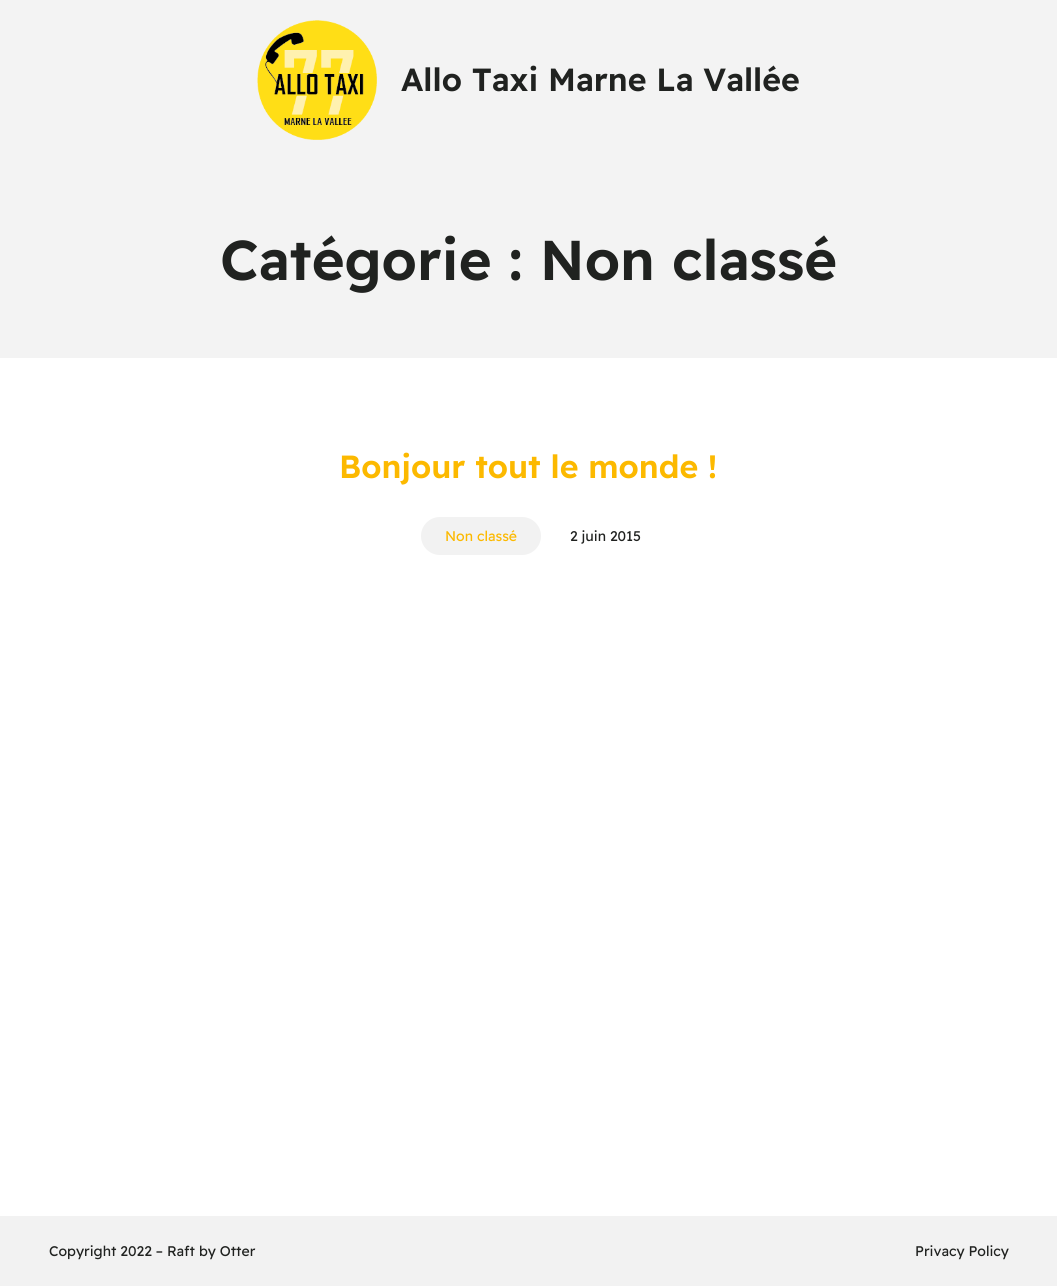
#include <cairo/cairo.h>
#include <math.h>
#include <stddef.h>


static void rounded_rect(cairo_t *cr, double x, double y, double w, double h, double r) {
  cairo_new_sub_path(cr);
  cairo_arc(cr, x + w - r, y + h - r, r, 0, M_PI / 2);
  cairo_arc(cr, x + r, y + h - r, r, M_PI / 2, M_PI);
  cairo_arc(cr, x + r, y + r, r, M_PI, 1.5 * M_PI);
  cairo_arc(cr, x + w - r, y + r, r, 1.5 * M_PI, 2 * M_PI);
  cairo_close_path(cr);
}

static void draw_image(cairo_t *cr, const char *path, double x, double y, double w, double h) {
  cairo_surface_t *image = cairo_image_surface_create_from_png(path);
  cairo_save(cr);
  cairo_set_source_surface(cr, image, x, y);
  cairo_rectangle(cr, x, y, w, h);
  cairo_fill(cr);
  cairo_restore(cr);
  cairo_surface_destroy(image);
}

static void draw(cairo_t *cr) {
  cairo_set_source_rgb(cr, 1, 1, 1);
  cairo_paint(cr);
  cairo_set_source_rgb(cr, 243 / 255.0, 243 / 255.0, 243 / 255.0);
  cairo_rectangle(cr, 0, 0, 1057, 358);
  cairo_fill(cr);
  draw_image(cr, "images/1.png", 257, 20, 120, 120);
  cairo_set_source_rgb(cr, 242 / 255.0, 242 / 255.0, 242 / 255.0);
  rounded_rect(cr, 421, 517, 120, 38, 19);
  cairo_fill(cr);
  cairo_rectangle(cr, 0, 1216, 1057, 70);
  cairo_fill(cr);
  cairo_select_font_face(cr, "Readex Pro SemiBold", CAIRO_FONT_SLANT_NORMAL, CAIRO_FONT_WEIGHT_NORMAL);
  cairo_set_font_size(cr, 32);
  cairo_set_source_rgb(cr, 32 / 255.0, 34 / 255.0, 32 / 255.0);
  cairo_move_to(cr, 401, 91);
  cairo_show_text(cr, "Allo Taxi Marne La Vallée");
  cairo_set_font_size(cr, 56);
  cairo_move_to(cr, 220, 280);
  cairo_show_text(cr, "Catégorie : Non classé");
  cairo_set_font_size(cr, 32);
  cairo_set_source_rgb(cr, 252 / 255.0, 185 / 255.0, 0);
  cairo_move_to(cr, 339, 478);
  cairo_show_text(cr, "Bonjour tout le monde !");
  cairo_select_font_face(cr, "Readex Pro", CAIRO_FONT_SLANT_NORMAL, CAIRO_FONT_WEIGHT_NORMAL);
  cairo_set_font_size(cr, 14);
  cairo_move_to(cr, 445, 541);
  cairo_show_text(cr, "Non classé");
  cairo_set_source_rgb(cr, 32 / 255.0, 34 / 255.0, 32 / 255.0);
  cairo_move_to(cr, 570, 541);
  cairo_show_text(cr, "2 juin 2015");
  cairo_move_to(cr, 49, 1256);
  cairo_show_text(cr, "Copyright 2022 – Raft by Otter");
  cairo_move_to(cr, 915, 1256);
  cairo_show_text(cr, "Privacy Policy");
}

int main(void) {
  cairo_surface_t *surface = cairo_image_surface_create(CAIRO_FORMAT_RGB24, 1057, 1286);
  cairo_t *cr = cairo_create(surface);
  cairo_font_options_t *options = cairo_font_options_create();
  cairo_font_options_set_hint_metrics(options, CAIRO_HINT_METRICS_OFF);
  cairo_font_options_set_hint_style(options, CAIRO_HINT_STYLE_NONE);
  cairo_set_font_options(cr, options);
  cairo_set_miter_limit(cr, 4);
  draw(cr);
  cairo_surface_write_to_png(surface, "out.png");
  cairo_font_options_destroy(options);
  cairo_destroy(cr);
  cairo_surface_destroy(surface);
  return 0;
}
